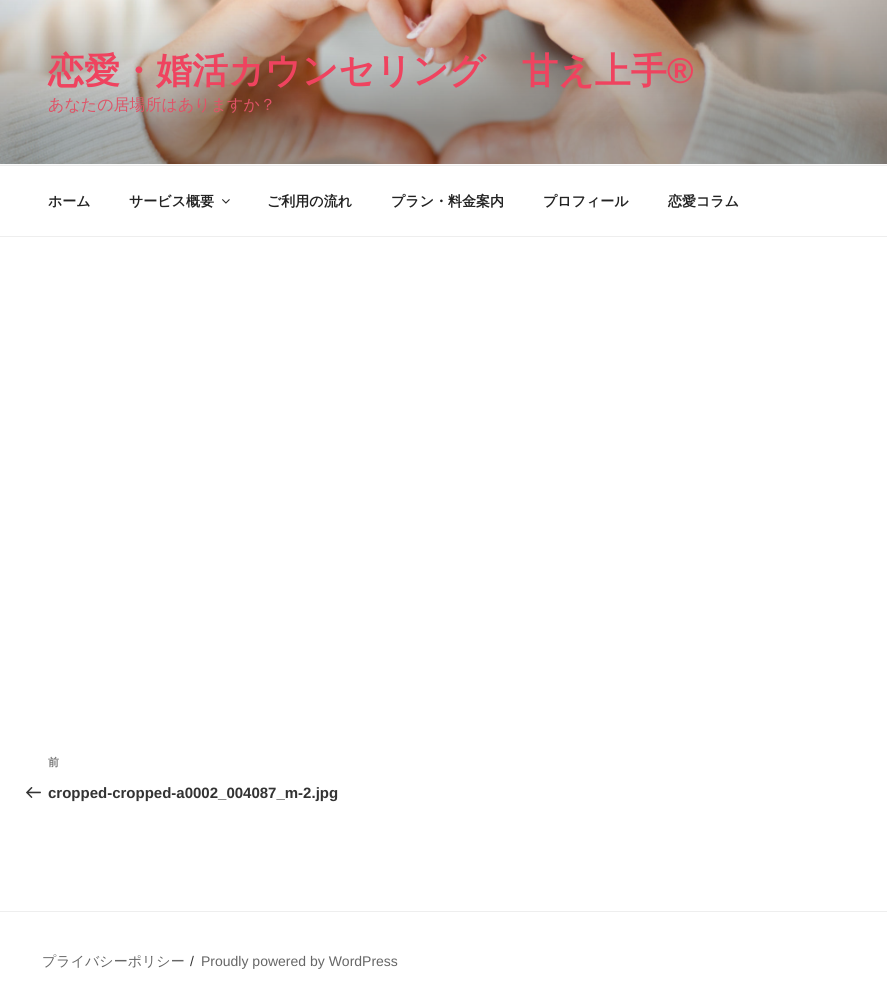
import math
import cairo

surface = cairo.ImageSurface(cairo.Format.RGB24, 887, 994)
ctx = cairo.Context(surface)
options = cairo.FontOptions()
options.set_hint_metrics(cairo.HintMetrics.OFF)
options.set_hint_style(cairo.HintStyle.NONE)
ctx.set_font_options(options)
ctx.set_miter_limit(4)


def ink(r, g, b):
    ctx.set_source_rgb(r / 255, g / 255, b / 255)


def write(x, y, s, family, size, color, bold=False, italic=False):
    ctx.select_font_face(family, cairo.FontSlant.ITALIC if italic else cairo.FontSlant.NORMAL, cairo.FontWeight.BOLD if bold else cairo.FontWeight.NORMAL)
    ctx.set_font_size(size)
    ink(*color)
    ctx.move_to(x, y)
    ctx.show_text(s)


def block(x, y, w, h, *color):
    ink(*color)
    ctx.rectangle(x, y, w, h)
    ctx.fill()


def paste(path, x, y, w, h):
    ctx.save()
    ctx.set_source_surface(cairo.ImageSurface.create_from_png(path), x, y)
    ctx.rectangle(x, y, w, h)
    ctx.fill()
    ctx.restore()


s1 = dict(family="WenQuanYi Zen Hei", size=36, color=(239, 67, 95), bold=True)
s2 = dict(family="Liberation Sans", size=36, color=(239, 67, 95), bold=True)
s3 = dict(family="WenQuanYi Zen Hei Medium", size=16, color=(223, 83, 103))
s4 = dict(family="WenQuanYi Zen Hei", size=14, color=(34, 34, 34), bold=True)
s5 = dict(family="WenQuanYi Zen Hei", size=11, color=(118, 118, 118), bold=True)
s6 = dict(family="Liberation Sans", size=15, color=(51, 51, 51), bold=True)
s7 = dict(family="WenQuanYi Zen Hei Medium", size=14, color=(102, 102, 102))
s8 = dict(family="Liberation Sans", size=14, color=(51, 51, 51))
s9 = dict(family="Liberation Sans", size=14, color=(102, 102, 102))

ink(255, 255, 255)
ctx.paint()
block(0, 164, 887, 1, 250, 250, 250)
paste("pic1.png", 0, 0, 887, 164)
write(48, 83, "恋愛・婚活カウンセリング　甘え上手", **s1)
write(667, 83, "®", **s2)
write(48, 110, "あなたの居場所はありますか？", **s3)
block(0, 165, 887, 1, 238, 238, 238)
block(0, 236, 887, 1, 238, 238, 238)
write(48, 206, "ホーム", **s4)
write(129, 206, "サービス概要", **s4)
paste("pic2.png", 222, 199, 8, 5)
write(267, 206, "ご利用の流れ", **s4)
write(391, 206, "プラン・料金案内", **s4)
write(543, 206, "プロフィール", **s4)
write(668, 206, "恋愛コラム", **s4)
write(48, 766, "前", **s5)
paste("pic3.png", 26, 787, 15, 11)
write(48, 798, "cropped-cropped-a0002_004087_m-2.jpg", **s6)
block(0, 911, 887, 1, 238, 238, 238)
write(42, 966, "プライバシーポリシー", **s7)
write(190, 966, "/", **s8)
write(201, 966, "Proudly powered by WordPress", **s9)
surface.write_to_png("screenshot.png")
